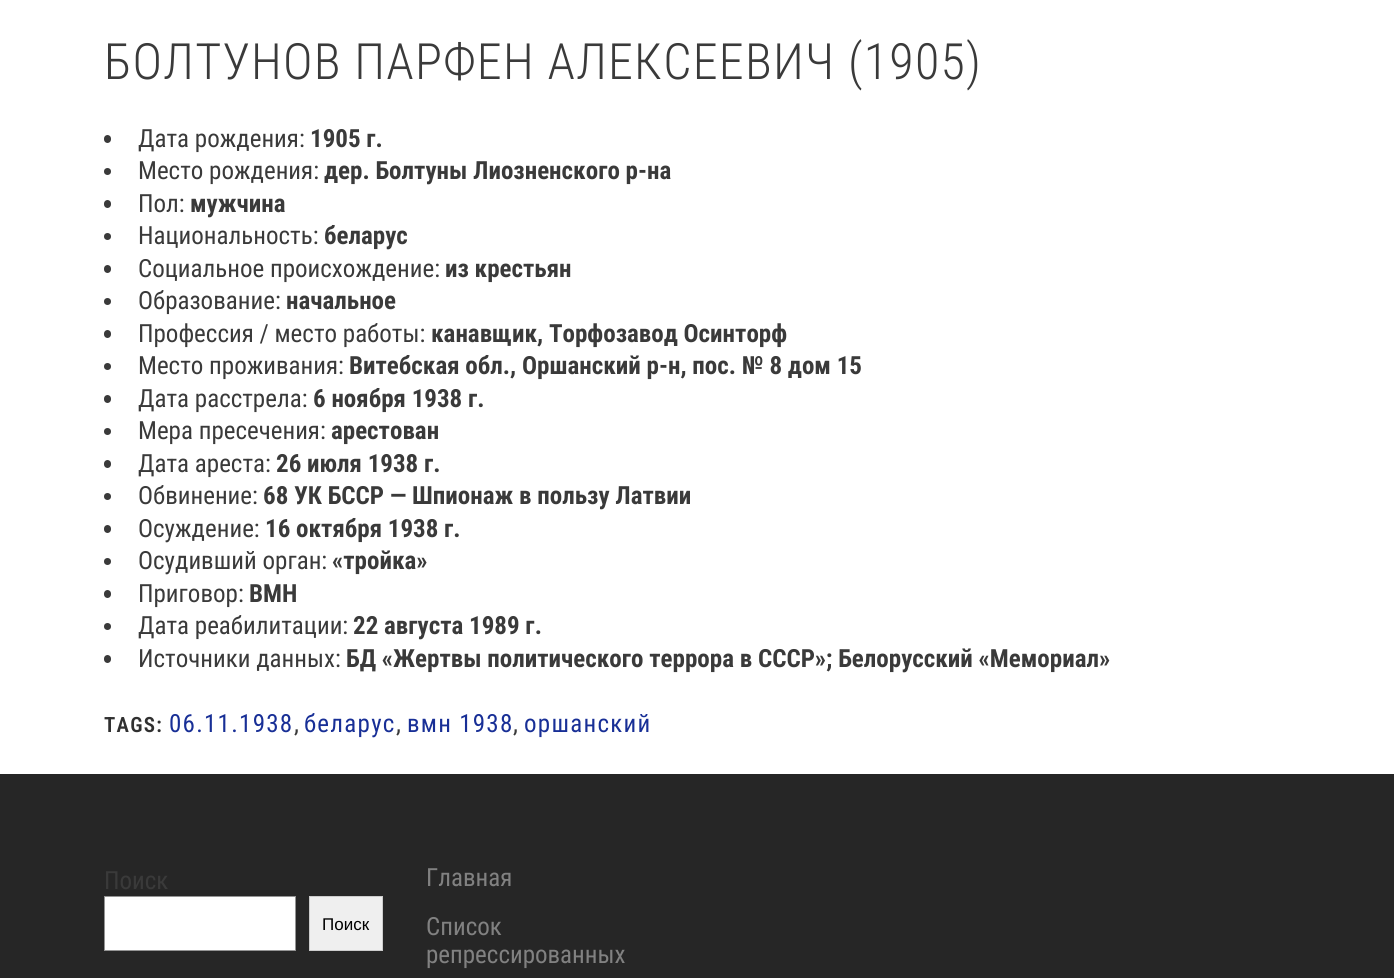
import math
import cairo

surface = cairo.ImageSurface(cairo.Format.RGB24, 1394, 978)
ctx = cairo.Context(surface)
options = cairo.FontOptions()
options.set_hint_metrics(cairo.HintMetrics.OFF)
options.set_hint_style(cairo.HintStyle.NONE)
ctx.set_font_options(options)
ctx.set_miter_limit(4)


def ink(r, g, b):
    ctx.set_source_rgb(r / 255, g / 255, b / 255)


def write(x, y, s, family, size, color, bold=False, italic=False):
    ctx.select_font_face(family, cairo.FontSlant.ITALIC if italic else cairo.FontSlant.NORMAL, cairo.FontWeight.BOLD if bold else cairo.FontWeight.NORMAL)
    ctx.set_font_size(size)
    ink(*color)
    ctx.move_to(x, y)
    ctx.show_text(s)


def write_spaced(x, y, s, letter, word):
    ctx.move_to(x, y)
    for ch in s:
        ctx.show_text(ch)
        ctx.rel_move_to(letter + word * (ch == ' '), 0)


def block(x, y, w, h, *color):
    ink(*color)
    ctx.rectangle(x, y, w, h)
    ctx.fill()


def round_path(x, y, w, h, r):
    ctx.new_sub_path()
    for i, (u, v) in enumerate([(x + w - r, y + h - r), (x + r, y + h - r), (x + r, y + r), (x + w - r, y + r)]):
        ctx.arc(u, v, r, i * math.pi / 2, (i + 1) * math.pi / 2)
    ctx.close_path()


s1 = dict(family="Roboto Condensed", size=25, color=(58, 58, 58))
s2 = dict(family="Roboto Condensed", size=25, color=(58, 58, 58), bold=True)
s3 = dict(family="Liberation Sans", size=17, color=(0, 0, 0))
s4 = dict(family="Roboto Condensed", size=25, color=(129, 129, 129))

ink(255, 255, 255)
ctx.paint()
ctx.select_font_face("Roboto Condensed Light")
ctx.set_font_size(50)
ink(58, 58, 58)
write_spaced(104, 79, "БОЛТУНОВ ПАРФЕН АЛЕКСЕЕВИЧ (1905)", 1.25, 0)
round_path(104, 135, 7, 8, 3.5)
ctx.fill()
write(138, 147, "Дата рождения:", **s1)
write(310, 147, "1905 г.", **s2)
ctx.new_path()
ctx.arc(107.5, 171.5, 3.5, 0, 2 * math.pi)
ctx.fill()
write(138, 179, "Место рождения:", **s1)
write(324, 179, "дер. Болтуны Лиозненского р-на", **s2)
round_path(104, 200, 7, 8, 3.5)
ctx.fill()
write(138, 212, "Пол:", **s1)
write(190, 212, "мужчина", **s2)
ctx.new_path()
ctx.arc(107.5, 236.5, 3.5, 0, 2 * math.pi)
ctx.fill()
write(138, 244, "Национальность:", **s1)
write(324, 244, "беларус", **s2)
round_path(104, 265, 7, 8, 3.5)
ctx.fill()
write(138, 277, "Социальное происхождение:", **s1)
write(445, 277, "из крестьян", **s2)
ctx.new_path()
ctx.arc(107.5, 301.5, 3.5, 0, 2 * math.pi)
ctx.fill()
write(138, 309, "Образование:", **s1)
write(286, 309, "начальное", **s2)
round_path(104, 330, 7, 8, 3.5)
ctx.fill()
write(138, 342, "Профессия / место работы:", **s1)
write(431, 342, "канавщик, Торфозавод Осинторф", **s2)
ctx.new_path()
ctx.arc(107.5, 366.5, 3.5, 0, 2 * math.pi)
ctx.fill()
write(138, 374, "Место проживания:", **s1)
write(349, 374, "Витебская обл., Оршанский р-н, пос. № 8 дом 15", **s2)
round_path(104, 395, 7, 8, 3.5)
ctx.fill()
write(138, 407, "Дата расстрела:", **s1)
write(313, 407, "6 ноября 1938 г.", **s2)
ctx.new_path()
ctx.arc(107.5, 431.5, 3.5, 0, 2 * math.pi)
ctx.fill()
write(138, 439, "Мера пресечения:", **s1)
write(331, 439, "арестован", **s2)
round_path(104, 460, 7, 8, 3.5)
ctx.fill()
write(138, 472, "Дата ареста:", **s1)
write(276, 472, "26 июля 1938 г.", **s2)
ctx.new_path()
ctx.arc(107.5, 496.5, 3.5, 0, 2 * math.pi)
ctx.fill()
write(138, 504, "Обвинение:", **s1)
write(263, 504, "68 УК БССР — Шпионаж в пользу Латвии", **s2)
round_path(104, 525, 7, 8, 3.5)
ctx.fill()
write(138, 537, "Осуждение:", **s1)
write(265, 537, "16 октября 1938 г.", **s2)
ctx.new_path()
ctx.arc(107.5, 561.5, 3.5, 0, 2 * math.pi)
ctx.fill()
write(138, 569, "Осудивший орган:", **s1)
write(332, 569, "«тройка»", **s2)
round_path(104, 590, 7, 8, 3.5)
ctx.fill()
write(138, 602, "Приговор:", **s1)
write(249, 602, "ВМН", **s2)
ctx.new_path()
ctx.arc(107.5, 626.5, 3.5, 0, 2 * math.pi)
ctx.fill()
write(138, 634, "Дата реабилитации:", **s1)
write(353, 634, "22 августа 1989 г.", **s2)
round_path(104, 655, 7, 8, 3.5)
ctx.fill()
write(138, 667, "Источники данных:", **s1)
write(346, 667, "БД «Жертвы политического террора в СССР»; Белорусский «Мемориал»", **s2)
ctx.select_font_face("Roboto Condensed SemiBold")
ctx.set_font_size(21)
ink(48, 48, 48)
write_spaced(104, 732, "TAGS:", 1.25, 0)
ctx.select_font_face("Roboto Condensed")
ctx.set_font_size(25)
ink(24, 47, 150)
write_spaced(169, 732, "06.11.1938", 1.25, 0)
write(294, 732, ",", **s1)
ink(24, 47, 150)
write_spaced(304, 732, "беларус", 1.25, 0)
write(396, 732, ",", **s1)
ink(24, 47, 150)
write_spaced(407, 732, "вмн 1938", 1.25, 0)
write(513, 732, ",", **s1)
ink(24, 47, 150)
write_spaced(524, 732, "оршанский", 1.25, 0)
block(0, 774, 1394, 204, 38, 38, 38)
write(104, 889, "Поиск", **s1)
ink(255, 255, 255)
ctx.rectangle(104.5, 896.5, 191, 54)
ctx.fill_preserve()
ink(148, 148, 148)
ctx.set_line_width(1)
ctx.stroke()
ink(239, 239, 239)
ctx.rectangle(309.5, 896.5, 73, 54)
ctx.fill_preserve()
ink(204, 204, 204)
ctx.stroke()
write(322, 930, "Поиск", **s3)
write(426, 886, "Главная", **s4)
write(426, 935, "Список", **s4)
write(426, 963, "репрессированных", **s4)
surface.write_to_png("screenshot.png")
